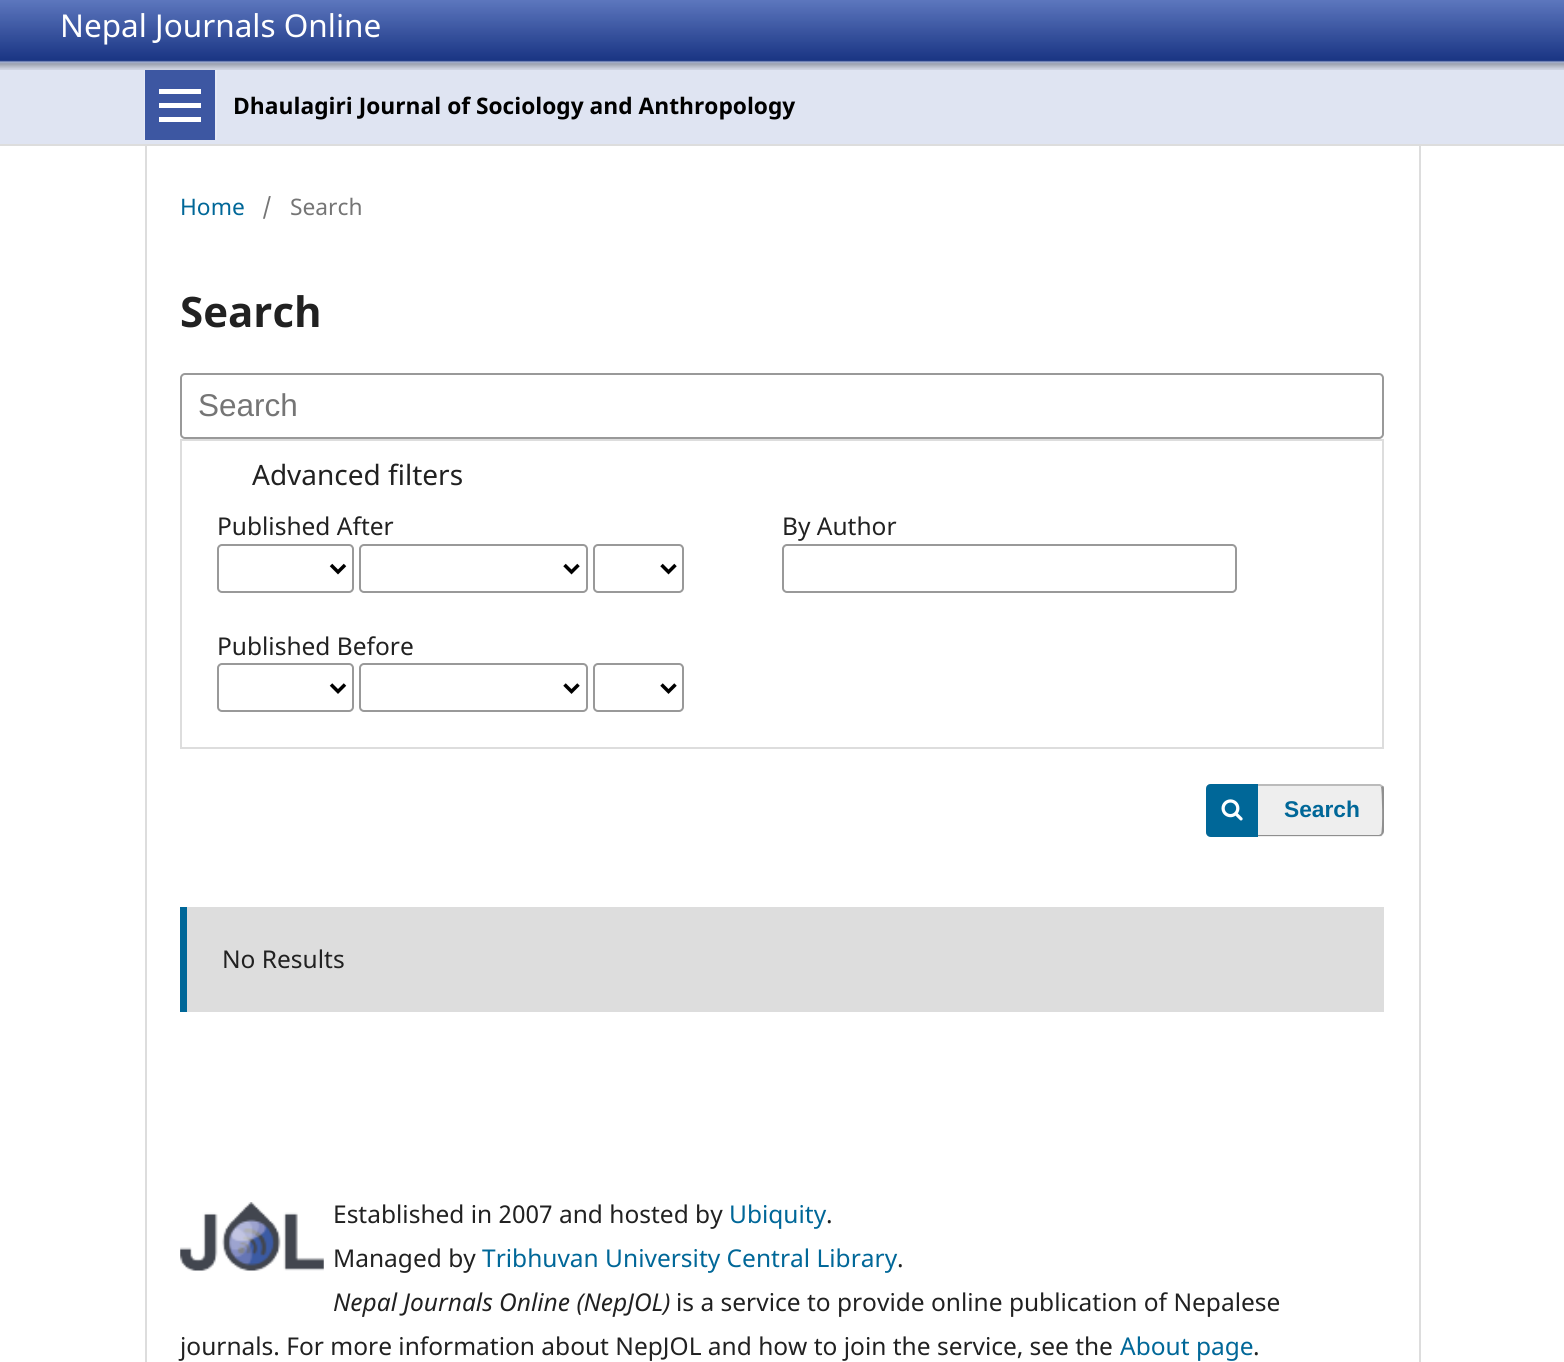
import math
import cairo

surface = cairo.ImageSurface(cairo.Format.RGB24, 1564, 1362)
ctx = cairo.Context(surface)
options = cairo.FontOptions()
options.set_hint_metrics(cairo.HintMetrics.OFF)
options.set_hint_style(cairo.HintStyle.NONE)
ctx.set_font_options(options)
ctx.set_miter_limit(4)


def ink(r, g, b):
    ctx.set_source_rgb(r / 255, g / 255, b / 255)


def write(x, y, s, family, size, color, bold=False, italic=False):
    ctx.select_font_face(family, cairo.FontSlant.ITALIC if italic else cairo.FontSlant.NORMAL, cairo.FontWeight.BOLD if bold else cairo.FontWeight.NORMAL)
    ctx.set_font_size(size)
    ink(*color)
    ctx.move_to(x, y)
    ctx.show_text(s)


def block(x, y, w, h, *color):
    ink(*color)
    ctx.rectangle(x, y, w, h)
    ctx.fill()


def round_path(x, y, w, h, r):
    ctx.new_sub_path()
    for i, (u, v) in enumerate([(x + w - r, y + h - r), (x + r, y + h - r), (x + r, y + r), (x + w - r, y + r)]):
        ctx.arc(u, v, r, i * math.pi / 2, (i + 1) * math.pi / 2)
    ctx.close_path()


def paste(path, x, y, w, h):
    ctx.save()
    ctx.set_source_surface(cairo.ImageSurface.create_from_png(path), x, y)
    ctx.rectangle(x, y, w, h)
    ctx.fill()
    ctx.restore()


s1 = dict(family="Noto Sans", size=31.5, color=(255, 255, 255))
s2 = dict(family="Noto Sans", size=22.75, color=(0, 0, 0), bold=True)
s3 = dict(family="Noto Sans", size=22.75, color=(0, 103, 152))
s4 = dict(family="Noto Sans", size=22.75, color=(117, 117, 117))
s5 = dict(family="Noto Sans", size=42, color=(33, 33, 33), bold=True)
s6 = dict(family="Liberation Sans", size=31.5, color=(117, 117, 117))
s7 = dict(family="Noto Sans", size=28, color=(33, 33, 33))
s8 = dict(family="Noto Sans", size=24.5, color=(33, 33, 33))
s9 = dict(family="Liberation Sans", size=22.75, color=(0, 103, 152), bold=True)
s10 = dict(family="Noto Sans", size=24.5, color=(0, 103, 152))
s11 = dict(family="Noto Sans", size=24.5, color=(33, 33, 33), italic=True)

ink(255, 255, 255)
ctx.paint()
block(0, 70, 1564, 74, 223, 228, 242)
block(0, 144, 1564, 2, 221, 221, 221)
paste("pic1.png", 0, 0, 1564, 70)
write(60, 37, "Nepal Journals Online", **s1)
block(144, 70, 1, 70, 229, 233, 245)
block(215, 70, 2, 70, 229, 233, 245)
block(145, 70, 70, 70, 61, 87, 162)
block(159, 117, 42, 5, 255, 255, 255)
block(159, 89, 42, 5, 255, 255, 255)
block(159, 103, 42, 5, 255, 255, 255)
write(233, 114, "Dhaulagiri Journal of Sociology and Anthropology", **s2)
block(145, 145, 2, 1217, 221, 221, 221)
write(180, 215, "Home", **s3)
write(262, 215, "/", **s4)
write(290, 215, "Search", **s4)
write(180, 327, "Search", **s5)
round_path(181, 374, 1202, 64, 4)
ink(153, 153, 153)
ctx.stroke()
write(198, 416, "Search", **s6)
ctx.rectangle(181, 440, 1202, 308)
ink(221, 221, 221)
ctx.stroke()
write(252, 485, "Advanced filters", **s7)
write(217, 535, "Published After", **s8)
round_path(218, 545, 135, 47, 4)
ink(153, 153, 153)
ctx.stroke()
ctx.new_path()
ctx.move_to(331, 565)
ctx.line_to(338, 572)
ctx.line_to(345, 565)
ink(0, 0, 0)
ctx.set_line_width(3.5)
ctx.stroke()
round_path(360, 545, 227, 47, 4)
ink(153, 153, 153)
ctx.set_line_width(2)
ctx.stroke()
ctx.new_path()
ctx.move_to(564.5, 565)
ctx.line_to(571.5, 572)
ctx.line_to(578.5, 565)
ink(0, 0, 0)
ctx.set_line_width(3.5)
ctx.stroke()
round_path(594, 545, 89, 47, 4)
ink(153, 153, 153)
ctx.set_line_width(2)
ctx.stroke()
ctx.new_path()
ctx.move_to(661.5, 565)
ctx.line_to(668.5, 572)
ctx.line_to(675.5, 565)
ink(0, 0, 0)
ctx.set_line_width(3.5)
ctx.stroke()
write(217, 655, "Published Before", **s8)
round_path(218, 664, 135, 47, 4)
ink(153, 153, 153)
ctx.set_line_width(2)
ctx.stroke()
ctx.new_path()
ctx.move_to(331, 684.5)
ctx.line_to(338, 691.5)
ctx.line_to(345, 684.5)
ink(0, 0, 0)
ctx.set_line_width(3.5)
ctx.stroke()
round_path(360, 664, 227, 47, 4)
ink(153, 153, 153)
ctx.set_line_width(2)
ctx.stroke()
ctx.new_path()
ctx.move_to(564.5, 684.5)
ctx.line_to(571.5, 691.5)
ctx.line_to(578.5, 684.5)
ink(0, 0, 0)
ctx.set_line_width(3.5)
ctx.stroke()
round_path(594, 664, 89, 47, 4)
ink(153, 153, 153)
ctx.set_line_width(2)
ctx.stroke()
ctx.new_path()
ctx.move_to(661.5, 684.5)
ctx.line_to(668.5, 691.5)
ctx.line_to(675.5, 684.5)
ink(0, 0, 0)
ctx.set_line_width(3.5)
ctx.stroke()
write(782, 535, "By Author", **s8)
round_path(783, 545, 453, 47, 4)
ink(153, 153, 153)
ctx.set_line_width(2)
ctx.stroke()
ink(238, 238, 238)
round_path(1206, 784, 178, 53, 5)
ctx.fill()
ink(187, 187, 187)
ctx.new_path()
ctx.move_to(1211, 784)
ctx.line_to(1380, 784)
ctx.line_to(1383, 786)
ctx.line_to(1381, 787)
ctx.line_to(1380, 786)
ctx.line_to(1239, 786)
ctx.curve_to(1226, 786, 1206, 783, 1206, 789)
ctx.curve_to(1206, 786, 1208, 784, 1211, 784)
ctx.close_path()
ctx.fill()
ctx.set_source_rgba(0, 0, 0, 0.4)
ctx.new_path()
ctx.move_to(1381, 834)
ctx.curve_to(1383, 831, 1382, 788, 1381, 787)
ctx.line_to(1383, 786)
ctx.curve_to(1384, 786, 1384, 788, 1384, 789)
ctx.line_to(1384, 831)
ctx.curve_to(1384, 833, 1383, 834, 1382, 835)
ctx.close_path()
ctx.fill()
ctx.new_path()
ctx.move_to(1382, 835)
ctx.line_to(1381, 834)
ctx.line_to(1379, 835)
ctx.line_to(1239, 835)
ctx.curve_to(1229, 835, 1206, 839, 1206, 831)
ctx.curve_to(1206, 834, 1208, 836, 1211, 836)
ctx.line_to(1379, 836)
ctx.curve_to(1380, 836, 1382, 836, 1382, 835)
ctx.close_path()
ctx.fill()
ink(0, 103, 152)
ctx.new_path()
ctx.move_to(1211, 784)
ctx.line_to(1258, 784)
ctx.line_to(1258, 837)
ctx.line_to(1211, 837)
ctx.curve_to(1208, 837, 1206, 835, 1206, 832)
ctx.line_to(1206, 789)
ctx.curve_to(1206, 786, 1208, 784, 1211, 784)
ctx.close_path()
ctx.fill()
paste("pic2.png", 1221, 799, 22, 22)
write(1284, 817, "Search", **s9)
block(187, 907, 1197, 105, 221, 221, 221)
block(180, 907, 7, 105, 0, 103, 152)
write(222, 968, "No Results", **s8)
block(1419, 145, 2, 1217, 221, 221, 221)
paste("pic3.png", 180, 1202, 144, 69)
write(333, 1223, "Established in 2007 and hosted by", **s8)
write(729, 1223, "Ubiquity", **s10)
write(826, 1223, ".", **s8)
write(333, 1267, "Managed by", **s8)
write(482, 1267, "Tribhuvan University Central Library", **s10)
write(897, 1267, ".", **s8)
write(333, 1311, "Nepal Journals Online (NepJOL)", **s11)
write(676, 1311, "is a service to provide online publication of Nepalese", **s8)
write(180, 1355, "journals. For more information about NepJOL and how to join the service, see the", **s8)
write(1120, 1355, "About page", **s10)
write(1253, 1355, ".", **s8)
surface.write_to_png("screenshot.png")
